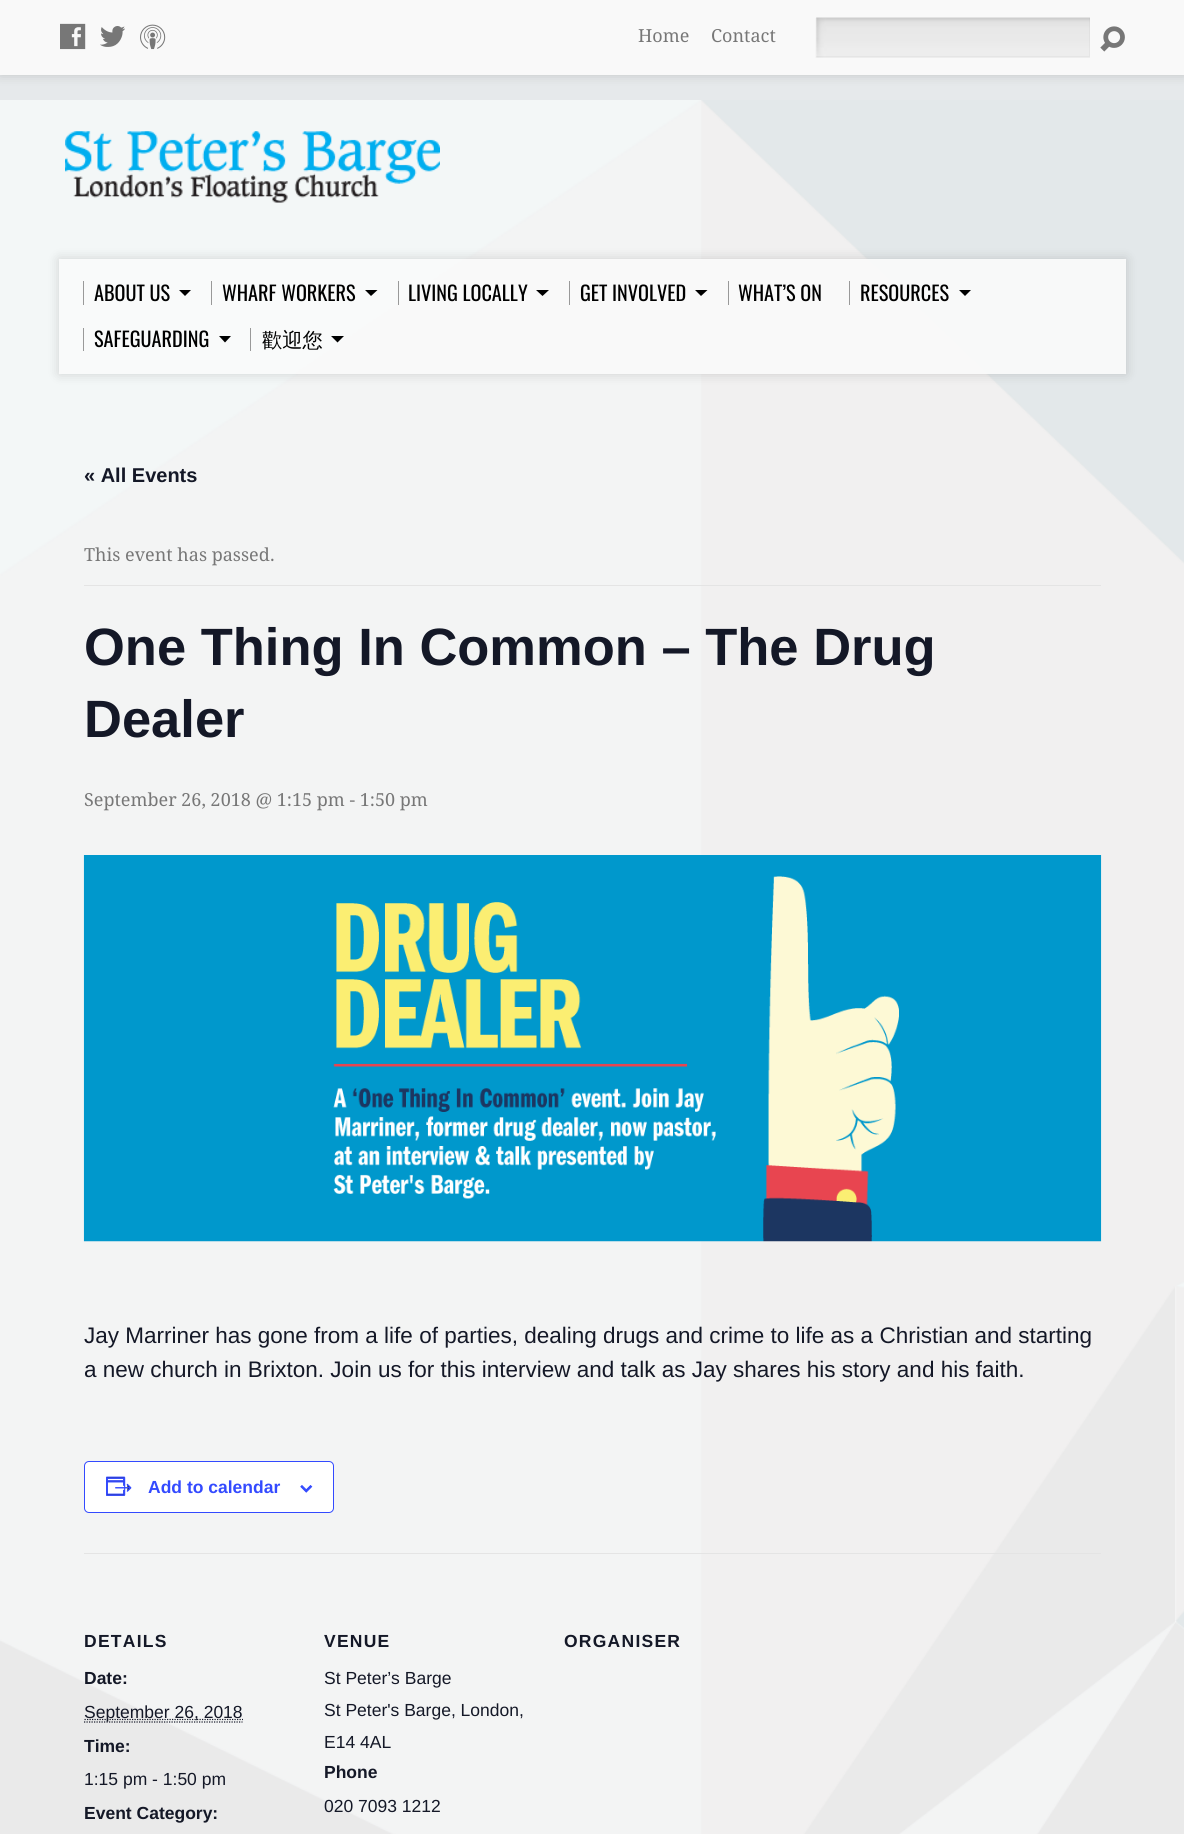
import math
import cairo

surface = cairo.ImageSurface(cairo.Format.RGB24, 1184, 1834)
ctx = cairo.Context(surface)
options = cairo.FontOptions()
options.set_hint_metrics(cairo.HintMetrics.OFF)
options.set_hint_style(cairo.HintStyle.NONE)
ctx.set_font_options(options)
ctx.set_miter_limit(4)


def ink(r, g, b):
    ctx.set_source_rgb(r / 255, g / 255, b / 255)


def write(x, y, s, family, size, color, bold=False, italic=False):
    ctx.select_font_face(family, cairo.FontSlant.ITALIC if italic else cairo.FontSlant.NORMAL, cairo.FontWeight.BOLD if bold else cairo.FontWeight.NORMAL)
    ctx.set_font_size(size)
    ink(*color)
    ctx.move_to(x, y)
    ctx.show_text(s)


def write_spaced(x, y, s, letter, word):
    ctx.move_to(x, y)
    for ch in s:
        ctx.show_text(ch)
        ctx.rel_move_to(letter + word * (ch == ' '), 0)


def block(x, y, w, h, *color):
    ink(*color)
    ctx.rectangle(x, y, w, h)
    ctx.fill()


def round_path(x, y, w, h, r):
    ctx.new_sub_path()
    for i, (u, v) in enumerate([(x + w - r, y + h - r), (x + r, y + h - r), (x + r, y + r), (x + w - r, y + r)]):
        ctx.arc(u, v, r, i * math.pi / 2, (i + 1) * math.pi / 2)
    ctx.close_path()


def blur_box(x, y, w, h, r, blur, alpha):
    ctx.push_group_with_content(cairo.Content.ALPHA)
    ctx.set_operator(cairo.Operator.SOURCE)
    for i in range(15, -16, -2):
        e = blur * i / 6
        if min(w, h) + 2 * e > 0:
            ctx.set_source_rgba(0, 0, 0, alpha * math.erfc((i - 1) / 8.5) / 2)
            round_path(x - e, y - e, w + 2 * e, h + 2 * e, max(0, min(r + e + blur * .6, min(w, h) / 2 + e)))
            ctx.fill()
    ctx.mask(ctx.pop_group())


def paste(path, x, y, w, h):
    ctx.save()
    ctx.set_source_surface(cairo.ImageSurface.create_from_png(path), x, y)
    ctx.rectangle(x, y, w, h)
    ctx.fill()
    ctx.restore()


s1 = dict(family="Droid Serif", size=18, color=(119, 119, 119))
s2 = dict(family="Oswald", size=20.25, color=(0, 0, 0))
s3 = dict(family="WenQuanYi Zen Hei Medium", size=20.25, color=(0, 0, 0))
s4 = dict(family="Liberation Sans", size=20, color=(20, 24, 39), bold=True)
s5 = dict(family="Liberation Sans", size=52.5, color=(20, 24, 39), bold=True)
s6 = dict(family="Liberation Sans", size=22.5, color=(20, 24, 39))
s7 = dict(family="Liberation Sans", size=17.5, color=(51, 74, 255), bold=True)
s8 = dict(family="Liberation Sans", size=17.5, color=(20, 24, 39), bold=True)
s9 = dict(family="Liberation Sans", size=17.5, color=(20, 24, 39))

ink(230, 233, 235)
ctx.paint()
paste("pic1.png", 0, 100, 1184, 1734)
ink(0, 0, 0)
blur_box(0, 0, 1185, 75, 0, 6, 0.15)
block(0, 0, 1184, 75, 249, 249, 249)
paste("pic2.png", 60, 23, 26, 27)
paste("pic3.png", 100, 26, 25, 21)
paste("pic4.png", 140, 24, 26, 26)
write(638, 42, "Home", **s1)
write(711, 42, "Contact", **s1)
block(815, 18, 275, 40, 255, 255, 255)
paste("pic5.png", 816, 17, 274, 41)
ctx.set_source_rgba(0.588, 0.588, 0.588, 0.1)
ctx.new_path()
ctx.move_to(1090, 18)
ctx.line_to(1090, 58)
ctx.line_to(1089, 56)
ctx.line_to(1089, 18)
ctx.close_path()
ctx.fill()
ctx.new_path()
ctx.move_to(1090, 58)
ctx.line_to(815, 58)
ctx.line_to(816, 56)
ctx.line_to(1089, 56)
ctx.close_path()
ctx.fill()
ctx.new_path()
ctx.move_to(815, 58)
ctx.line_to(815, 18)
ctx.line_to(816, 18)
ctx.line_to(816, 56)
ctx.close_path()
ctx.fill()
paste("pic6.png", 1100, 26, 25, 26)
paste("pic7.png", 65, 131, 375, 72)
ctx.save()
ctx.set_fill_rule(cairo.FillRule.EVEN_ODD)
ctx.new_path()
ctx.move_to(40, 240)
ctx.line_to(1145, 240)
ctx.line_to(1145, 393)
ctx.line_to(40, 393)
ctx.close_path()
ctx.move_to(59, 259)
ctx.line_to(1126, 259)
ctx.line_to(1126, 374)
ctx.line_to(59, 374)
ctx.close_path()
ctx.clip()
ink(0, 0, 0)
blur_box(59, 259, 1067, 115, 0, 6, 0.15)
ctx.restore()
ctx.set_source_rgba(0.98, 0.98, 0.98, 0.94)
ctx.rectangle(59, 259, 1067, 115)
ctx.fill()
block(83, 281, 1, 24, 153, 153, 153)
write(94, 301, "ABOUT US", **s2)
ctx.new_path()
ctx.move_to(179, 290)
ctx.line_to(191, 290)
ctx.line_to(185, 296)
ctx.close_path()
ctx.fill()
block(211, 281, 1, 24, 153, 153, 153)
write(222, 301, "WHARF WORKERS", **s2)
ctx.new_path()
ctx.move_to(365, 290)
ctx.line_to(377.5, 290)
ctx.line_to(371, 296)
ctx.close_path()
ctx.fill()
block(398, 281, 1, 24, 153, 153, 153)
write(408, 301, "LIVING LOCALLY", **s2)
ctx.new_path()
ctx.move_to(536, 290)
ctx.line_to(549, 290)
ctx.line_to(542.5, 296)
ctx.close_path()
ctx.fill()
block(569, 281, 1, 24, 153, 153, 153)
write(580, 301, "GET INVOLVED", **s2)
ctx.new_path()
ctx.move_to(695, 290)
ctx.line_to(707.5, 290)
ctx.line_to(701, 296)
ctx.close_path()
ctx.fill()
block(728, 281, 1, 24, 153, 153, 153)
write(738, 301, "WHAT’S ON", **s2)
block(849, 281, 1, 24, 153, 153, 153)
write(860, 301, "RESOURCES", **s2)
ctx.new_path()
ctx.move_to(959, 290)
ctx.line_to(971, 290)
ctx.line_to(965, 296)
ctx.close_path()
ctx.fill()
block(83, 328, 1, 23, 153, 153, 153)
write(94, 347, "SAFEGUARDING", **s2)
ctx.new_path()
ctx.move_to(219, 336)
ctx.line_to(231, 336)
ctx.line_to(225, 342.5)
ctx.close_path()
ctx.fill()
block(250, 328, 1, 23, 153, 153, 153)
write(262, 347, "歡迎您", **s3)
ctx.new_path()
ctx.move_to(331, 336)
ctx.line_to(344, 336)
ctx.line_to(337.5, 342.5)
ctx.close_path()
ctx.fill()
write(84, 482, "« All Events", **s4)
block(84, 585, 1017, 1, 228, 228, 228)
write(84, 561, "This event has passed.", **s1)
write(84, 665, "One Thing In Common – The Drug", **s5)
write(84, 737, "Dealer", **s5)
write(84, 806, "September 26, 2018 @ 1:15 pm - 1:50 pm", **s1)
paste("pic8.png", 83, 855, 1019, 387)
write(84, 1343, "Jay Marriner has gone from a life of parties, dealing drugs and crime to life as a Christian and starting", **s6)
write(84, 1377, "a new church in Brixton. Join us for this interview and talk as Jay shares his story and his faith.", **s6)
ink(255, 255, 255)
round_path(84.5, 1461.5, 249, 51, 4.5)
ctx.fill_preserve()
ink(51, 74, 255)
ctx.set_line_width(1)
ctx.stroke()
paste("pic9.png", 106, 1476, 26, 20)
write(148, 1493, "Add to calendar", **s7)
paste("pic10.png", 300, 1485, 13, 8)
block(84, 1553, 1017, 1, 228, 228, 228)
ink(20, 24, 39)
write_spaced(84, 1647, "DETAILS", 1.25, 0)
write(84, 1684, "Date:", **s8)
ctx.new_path()
ctx.move_to(84, 1722)
ctx.line_to(242.5, 1722)
ctx.set_line_width(1.2)
ctx.set_dash([1.25, 1.25])
ctx.stroke()
ctx.new_path()
ctx.move_to(84.5, 1719.5)
ctx.line_to(243, 1719.5)
ctx.stroke()
write(84, 1718, "September 26, 2018", **s9)
write(84, 1752, "Time:", **s8)
write(84, 1785, "1:15 pm - 1:50 pm", **s9)
write(84, 1819, "Event Category:", **s8)
write_spaced(324, 1647, "VENUE", 1.25, 0)
write(324, 1684, "St Peter’s Barge", **s9)
write(324, 1716, "St Peter's Barge, London,", **s9)
write(324, 1748, "E14 4AL", **s9)
write(324, 1778, "Phone", **s8)
write(324, 1812, "020 7093 1212", **s9)
ctx.select_font_face("Liberation Sans", cairo.FontSlant.NORMAL, cairo.FontWeight.BOLD)
write_spaced(564, 1647, "ORGANISER", 1.25, 0)
surface.write_to_png("screenshot.png")
